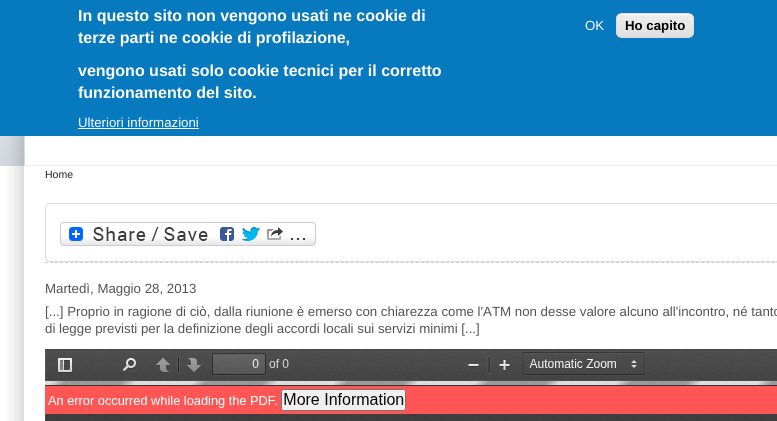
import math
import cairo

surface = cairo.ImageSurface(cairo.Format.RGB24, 777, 421)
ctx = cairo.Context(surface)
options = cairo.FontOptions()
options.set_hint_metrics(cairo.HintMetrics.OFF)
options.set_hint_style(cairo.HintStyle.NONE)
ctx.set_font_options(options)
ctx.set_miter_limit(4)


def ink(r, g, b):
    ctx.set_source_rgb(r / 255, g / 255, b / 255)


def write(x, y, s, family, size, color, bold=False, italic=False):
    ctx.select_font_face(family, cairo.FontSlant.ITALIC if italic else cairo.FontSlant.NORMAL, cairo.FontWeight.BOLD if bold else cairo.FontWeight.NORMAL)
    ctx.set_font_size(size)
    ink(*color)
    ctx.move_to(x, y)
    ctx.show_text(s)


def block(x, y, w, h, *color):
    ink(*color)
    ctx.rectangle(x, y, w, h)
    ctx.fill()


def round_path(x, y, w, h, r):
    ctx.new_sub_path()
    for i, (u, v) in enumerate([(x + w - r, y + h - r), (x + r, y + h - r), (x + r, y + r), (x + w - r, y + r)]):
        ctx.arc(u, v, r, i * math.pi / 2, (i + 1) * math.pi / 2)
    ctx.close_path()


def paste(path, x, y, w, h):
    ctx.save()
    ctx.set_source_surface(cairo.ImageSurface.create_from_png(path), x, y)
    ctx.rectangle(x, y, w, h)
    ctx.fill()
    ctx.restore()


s1 = dict(family="Liberation Sans", size=16, color=(255, 255, 255), bold=True)
s2 = dict(family="Liberation Sans", size=13.25, color=(255, 255, 255))
s3 = dict(family="Liberation Sans", size=13.25, color=(0, 0, 0), bold=True)
s4 = dict(family="Liberation Sans", size=10.5, color=(30, 32, 27))
s5 = dict(family="Liberation Sans", size=13.28, color=(83, 83, 83))

ink(255, 255, 255)
ctx.paint()
block(0, 0, 777, 136, 7, 121, 191)
write(78, 21, "In questo sito non vengono usati ne cookie di", **s1)
write(78, 43, "terze parti ne cookie di profilazione,", **s1)
write(78, 76, "vengono usati solo cookie tecnici per il corretto", **s1)
write(78, 98, "funzionamento del sito.", **s1)
write(78, 127, "Ulteriori informazioni", **s2)
block(78, 128, 121, 1, 255, 255, 255)
write(585, 30, "OK", **s2)
ctx.save()
round_path(616, 13, 78, 25, 6)
ctx.clip()
gradient = cairo.LinearGradient(655, 14, 655, 37)
gradient.add_color_stop_rgba(0.05, 0.929, 0.929, 0.929, 1)
gradient.add_color_stop_rgba(1, 0.875, 0.875, 0.875, 1)
ctx.set_source(gradient)
ctx.rectangle(616, 14, 78, 23)
ctx.fill()
ctx.restore()
ctx.new_path()
ctx.move_to(622, 15)
ctx.line_to(688, 15)
ctx.curve_to(691, 15, 693, 17, 693, 20)
ctx.curve_to(693, 11, 683, 14, 677, 14)
ctx.line_to(633, 14)
ctx.curve_to(627, 14, 617, 11, 617, 20)
ctx.curve_to(617, 17, 619, 15, 622, 15)
ctx.close_path()
ctx.fill()
round_path(616.5, 13.5, 77, 24, 5.5)
ink(220, 220, 220)
ctx.set_line_width(1)
ctx.stroke()
write(625, 30, "Ho capito", **s3)
paste("pic1.png", 24, 136, 1, 30)
paste("pic2.png", 0, 136, 24, 30)
block(25, 165, 752, 1, 238, 238, 238)
paste("pic3.png", 7, 166, 17, 255)
write(45, 178, "Home", **s4)
round_path(45.5, 203.5, 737, 58, 4.5)
ink(221, 221, 221)
ctx.stroke()
paste("pic4.png", 60, 222, 256, 24)
ctx.new_path()
ctx.move_to(45, 262.5)
ctx.line_to(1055, 262.5)
ink(204, 204, 204)
ctx.set_dash([3, 2.01])
ctx.stroke()
write(45, 293, "Martedì, Maggio 28, 2013", **s5)
write(45, 316, "[...] Proprio in ragione di ciò, dalla riunione è emerso con chiarezza come l'ATM non desse valore alcuno all'incontro, né tanto", **s5)
write(45, 333, "di legge previsti per la definizione degli accordi locali sui servizi minimi [...]", **s5)
paste("pic5.png", 45, 349, 732, 72)
surface.write_to_png("screenshot.png")
